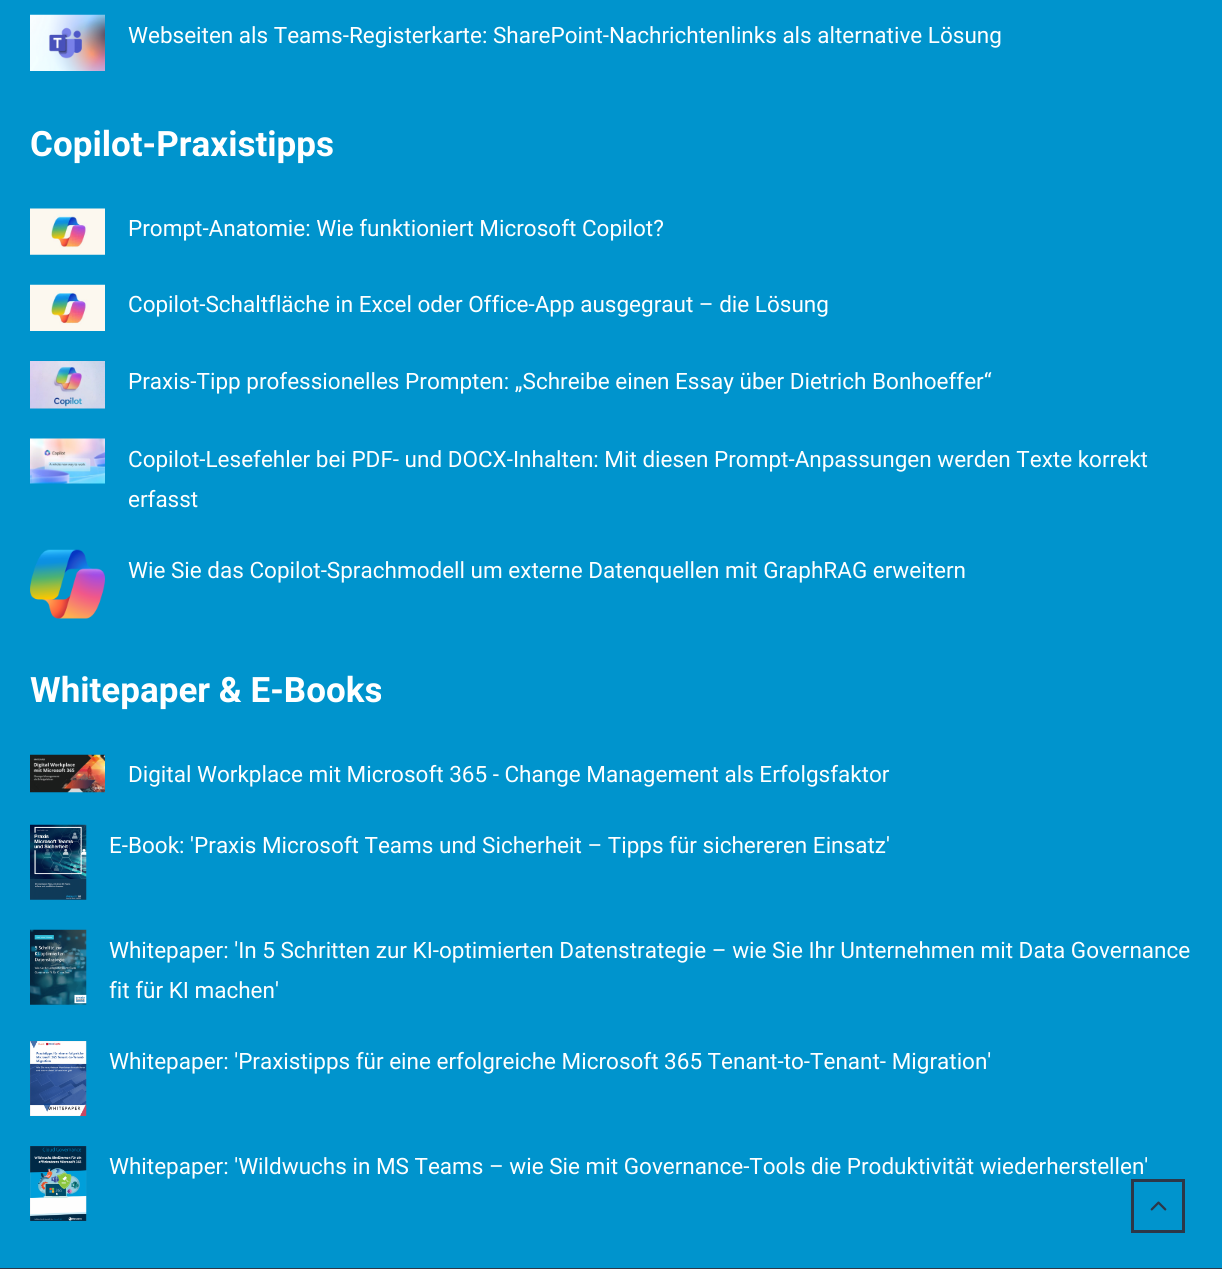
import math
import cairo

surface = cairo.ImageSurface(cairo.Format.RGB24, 1222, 1269)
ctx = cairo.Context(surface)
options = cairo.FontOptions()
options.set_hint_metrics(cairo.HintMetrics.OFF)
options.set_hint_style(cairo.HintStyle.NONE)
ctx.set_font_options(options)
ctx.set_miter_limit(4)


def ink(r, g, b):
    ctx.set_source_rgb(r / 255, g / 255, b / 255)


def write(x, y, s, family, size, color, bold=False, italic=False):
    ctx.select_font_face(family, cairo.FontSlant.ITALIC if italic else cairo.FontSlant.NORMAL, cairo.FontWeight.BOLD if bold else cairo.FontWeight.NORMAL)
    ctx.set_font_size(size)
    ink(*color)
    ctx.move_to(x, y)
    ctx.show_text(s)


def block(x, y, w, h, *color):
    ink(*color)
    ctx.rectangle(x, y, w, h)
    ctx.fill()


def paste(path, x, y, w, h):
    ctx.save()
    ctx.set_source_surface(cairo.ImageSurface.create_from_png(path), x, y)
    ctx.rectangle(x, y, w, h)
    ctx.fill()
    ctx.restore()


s1 = dict(family="Roboto", size=22.5, color=(255, 255, 255))
s2 = dict(family="Roboto", size=35, color=(255, 255, 255), bold=True)

ink(0, 148, 205)
ctx.paint()
paste("pic1.png", 30, 14, 75, 57)
write(128, 43, "Webseiten als Teams-Registerkarte: SharePoint-Nachrichtenlinks als alternative Lösung", **s1)
write(30, 156, "Copilot-Praxistipps", **s2)
paste("pic2.png", 30, 208, 75, 47)
write(128, 236, "Prompt-Anatomie: Wie funktioniert Microsoft Copilot?", **s1)
paste("pic3.png", 30, 284, 75, 47)
write(128, 312, "Copilot-Schaltfläche in Excel oder Office-App ausgegraut – die Lösung", **s1)
paste("pic4.png", 30, 361, 75, 48)
write(128, 389, "Praxis-Tipp professionelles Prompten: „Schreibe einen Essay über Dietrich Bonhoeffer“", **s1)
paste("pic5.png", 30, 438, 75, 46)
write(128, 467, "Copilot-Lesefehler bei PDF- und DOCX-Inhalten: Mit diesen Prompt-Anpassungen werden Texte korrekt", **s1)
write(128, 507, "erfasst", **s1)
paste("pic6.png", 30, 549, 75, 70)
write(128, 578, "Wie Sie das Copilot-Sprachmodell um externe Datenquellen mit GraphRAG erweitern", **s1)
write(30, 702, "Whitepaper & E-Books", **s2)
paste("pic7.png", 30, 754, 75, 39)
write(128, 782, "Digital Workplace mit Microsoft 365 - Change Management als Erfolgsfaktor", **s1)
paste("pic8.png", 30, 824, 57, 76)
write(109, 853, "E-Book: 'Praxis Microsoft Teams und Sicherheit – Tipps für sichereren Einsatz'", **s1)
paste("pic9.png", 30, 929, 57, 76)
write(109, 958, "Whitepaper: 'In 5 Schritten zur KI-optimierten Datenstrategie – wie Sie Ihr Unternehmen mit Data Governance", **s1)
write(109, 998, "fit für KI machen'", **s1)
paste("pic10.png", 30, 1041, 57, 75)
write(109, 1069, "Whitepaper: 'Praxistipps für eine erfolgreiche Microsoft 365 Tenant-to-Tenant- Migration'", **s1)
paste("pic11.png", 30, 1146, 57, 75)
write(109, 1174, "Whitepaper: 'Wildwuchs in MS Teams – wie Sie mit Governance-Tools die Produktivität wiederherstellen'", **s1)
block(0, 1268, 1222, 1, 45, 55, 72)
ctx.rectangle(1132.5, 1180.5, 51, 51)
ctx.set_line_width(3)
ctx.stroke()
paste("pic12.png", 1150, 1201, 17, 10)
surface.write_to_png("screenshot.png")
